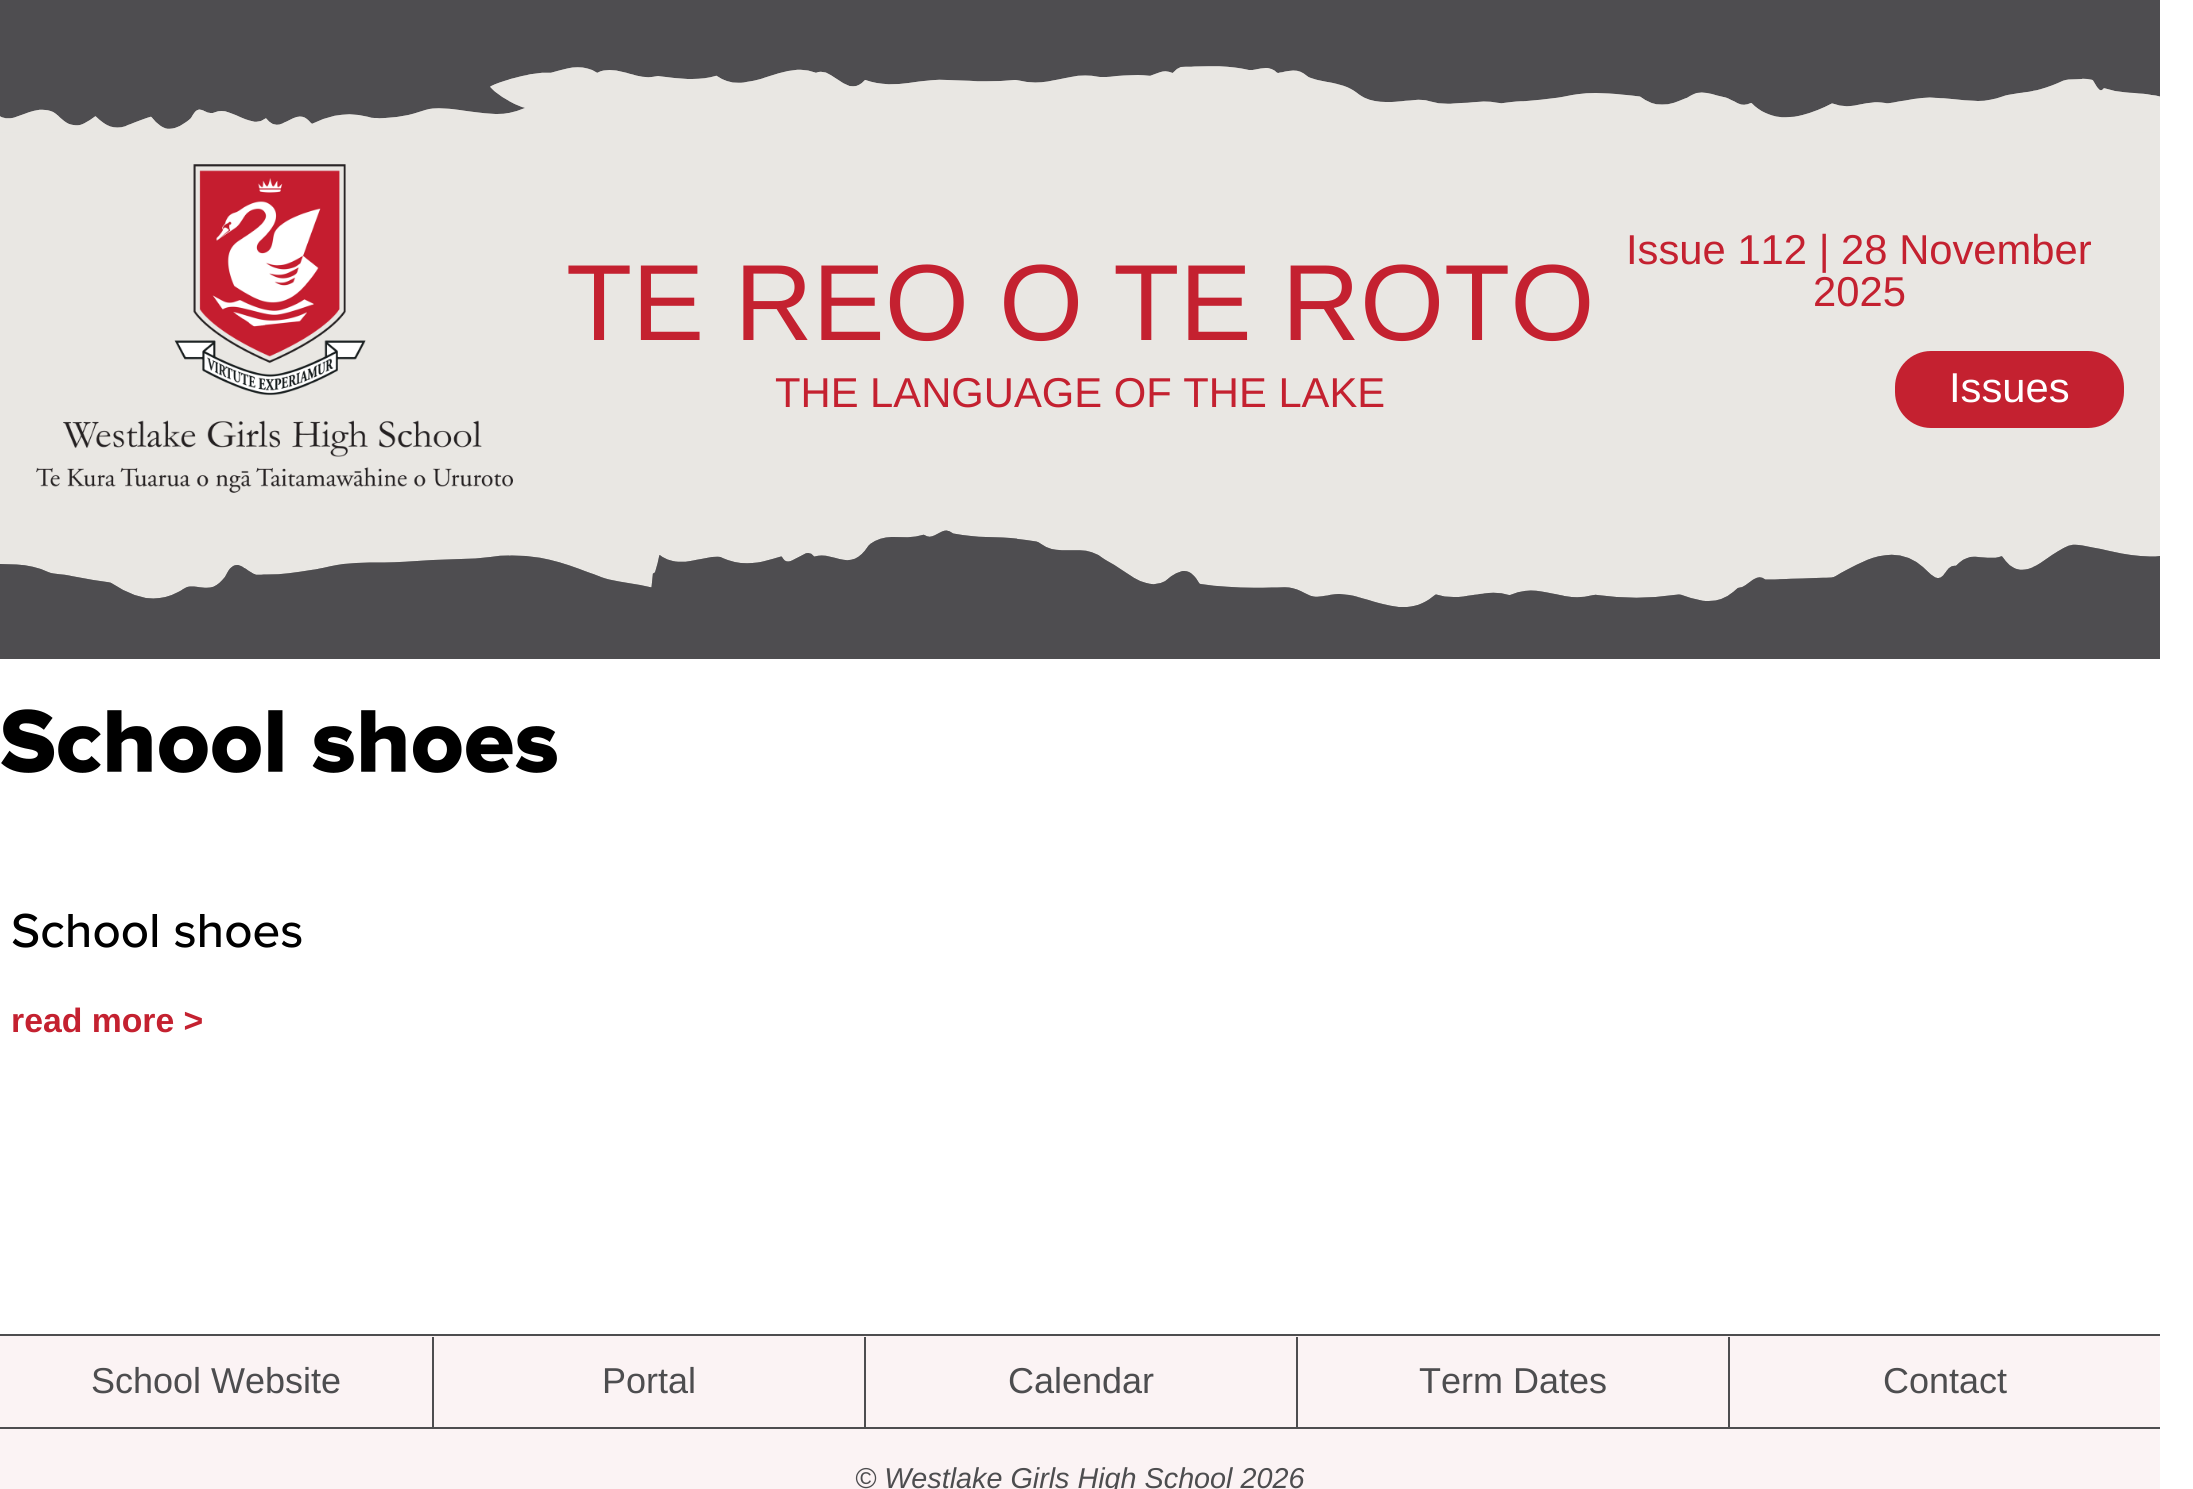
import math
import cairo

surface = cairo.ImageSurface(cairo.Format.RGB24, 2193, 1489)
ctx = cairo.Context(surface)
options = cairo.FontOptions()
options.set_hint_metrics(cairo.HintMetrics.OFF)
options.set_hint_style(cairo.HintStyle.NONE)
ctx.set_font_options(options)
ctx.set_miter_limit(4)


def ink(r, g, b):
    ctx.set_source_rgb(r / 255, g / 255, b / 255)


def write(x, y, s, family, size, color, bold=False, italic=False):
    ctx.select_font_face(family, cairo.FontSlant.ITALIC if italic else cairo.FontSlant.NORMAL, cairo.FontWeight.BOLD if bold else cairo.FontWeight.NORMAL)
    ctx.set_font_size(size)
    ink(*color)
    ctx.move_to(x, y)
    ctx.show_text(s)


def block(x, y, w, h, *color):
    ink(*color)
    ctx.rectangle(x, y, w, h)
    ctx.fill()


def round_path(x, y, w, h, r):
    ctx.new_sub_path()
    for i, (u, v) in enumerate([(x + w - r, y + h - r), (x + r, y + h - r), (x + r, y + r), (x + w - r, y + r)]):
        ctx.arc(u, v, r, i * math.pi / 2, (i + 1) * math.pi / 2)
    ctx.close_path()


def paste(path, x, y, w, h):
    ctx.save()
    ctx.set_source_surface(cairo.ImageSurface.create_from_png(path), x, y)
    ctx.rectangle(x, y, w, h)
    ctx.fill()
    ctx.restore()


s1 = dict(family="Liberation Sans", size=108.25, color=(196, 33, 48))
s2 = dict(family="Liberation Sans", size=41.75, color=(196, 33, 48))
s3 = dict(family="Liberation Sans", size=41.75, color=(255, 255, 255))
s4 = dict(family="Proxima Nova", size=49.5, color=(0, 0, 0))
s5 = dict(family="Liberation Sans", size=33.75, color=(196, 33, 48), bold=True)
s6 = dict(family="Liberation Sans", size=36, color=(77, 77, 79))
s7 = dict(family="Liberation Sans", size=28.75, color=(77, 77, 79), italic=True)

ink(255, 255, 255)
ctx.paint()
block(0, 132, 2160, 395, 233, 231, 227)
paste("pic1.png", 0, 0, 2160, 659)
paste("pic2.png", 36, 164, 477, 329)
write(566, 340, "TE REO O TE ROTO", **s1)
write(775, 407, "THE LANGUAGE OF THE LAKE", **s2)
write(1626, 264, "Issue 112 | 28 November", **s2)
write(1813, 306, "2025", **s2)
round_path(1895, 351, 229, 77, 36)
ctx.fill()
write(1949, 402, "Issues", **s3)
paste("pic3.png", 1, 709, 556, 64)
write(11, 947, "School shoes", **s4)
write(11, 1032, "read more >", **s5)
block(0, 1336, 2160, 153, 251, 243, 244)
block(0, 1334, 2160, 2, 77, 77, 79)
block(0, 1427, 2160, 2, 77, 77, 79)
write(91, 1393, "School Website", **s6)
block(432, 1337, 2, 92, 77, 77, 79)
write(602, 1393, "Portal", **s6)
block(864, 1337, 2, 92, 77, 77, 79)
write(1008, 1393, "Calendar", **s6)
block(1296, 1337, 2, 92, 77, 77, 79)
write(1419, 1393, "Term Dates", **s6)
block(1728, 1337, 2, 92, 77, 77, 79)
write(1883, 1393, "Contact", **s6)
write(855, 1488, "© Westlake Girls High School 2026", **s7)
surface.write_to_png("screenshot.png")
